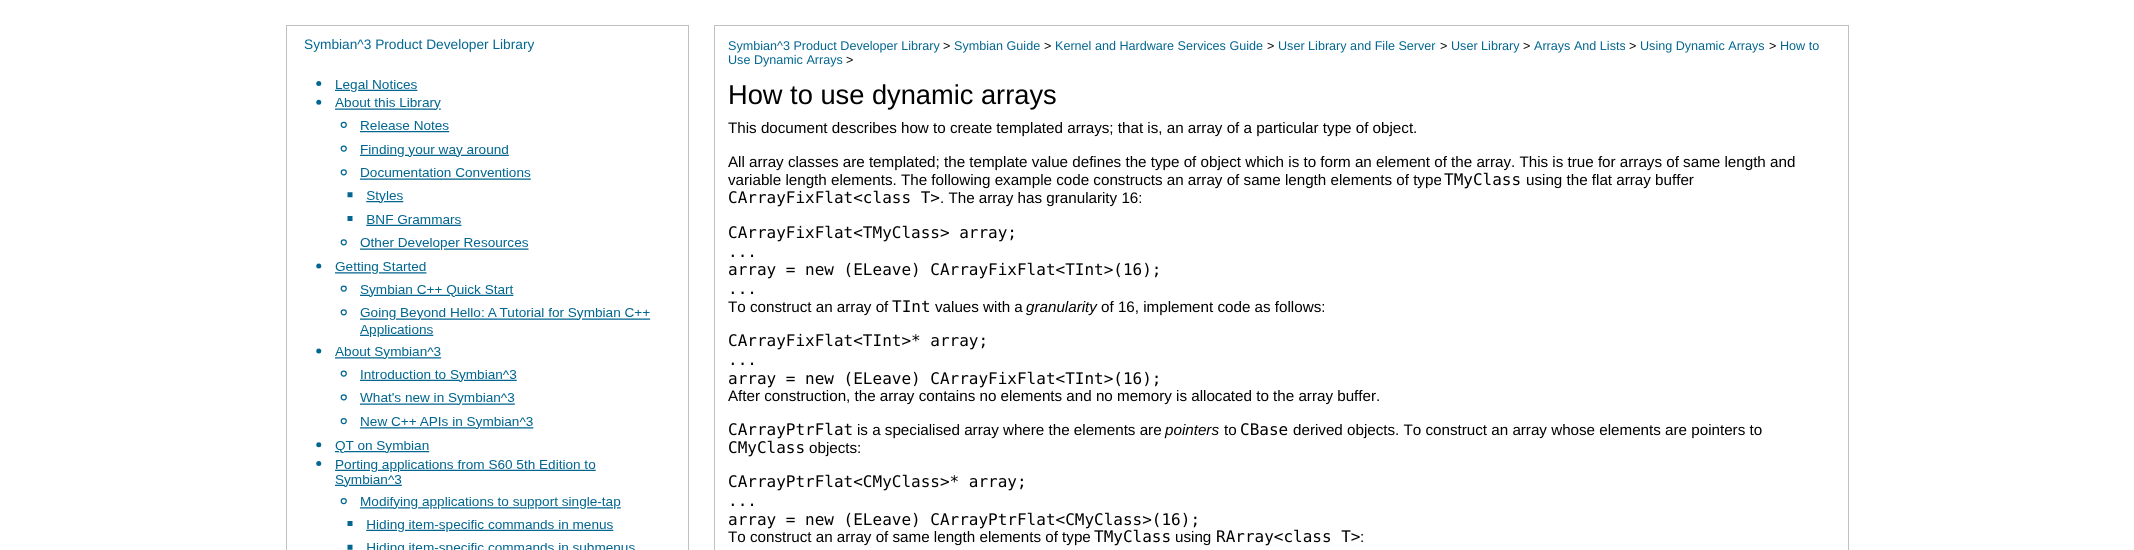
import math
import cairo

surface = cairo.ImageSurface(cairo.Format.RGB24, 2134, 550)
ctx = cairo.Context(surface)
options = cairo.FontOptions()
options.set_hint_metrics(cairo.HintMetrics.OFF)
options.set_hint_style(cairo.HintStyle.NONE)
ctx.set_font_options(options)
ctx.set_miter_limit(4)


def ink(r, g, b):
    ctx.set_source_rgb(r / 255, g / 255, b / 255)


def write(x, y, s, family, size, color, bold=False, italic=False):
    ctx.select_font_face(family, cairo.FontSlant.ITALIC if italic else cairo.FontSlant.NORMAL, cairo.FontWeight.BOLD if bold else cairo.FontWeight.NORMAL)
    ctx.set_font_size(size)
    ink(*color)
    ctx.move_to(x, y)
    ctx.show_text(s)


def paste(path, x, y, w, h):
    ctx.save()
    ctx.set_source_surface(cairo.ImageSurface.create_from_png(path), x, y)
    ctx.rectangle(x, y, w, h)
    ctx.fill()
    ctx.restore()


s1 = dict(family="Liberation Sans", size=13.7, color=(2, 102, 144))
s2 = dict(family="Liberation Sans", size=12.6, color=(2, 102, 144))
s3 = dict(family="Liberation Sans", size=12.6, color=(0, 0, 0))
s4 = dict(family="Liberation Sans", size=27.25, color=(0, 0, 0))
s5 = dict(family="Liberation Sans", size=15.18, color=(0, 0, 0))
s6 = dict(family="DejaVu Sans Mono", size=16, color=(0, 0, 0))
s7 = dict(family="Liberation Sans", size=15.18, color=(0, 0, 0), italic=True)

ink(255, 255, 255)
ctx.paint()
ctx.rectangle(286.5, 25.5, 402, 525)
ink(192, 192, 192)
ctx.set_line_width(1)
ctx.stroke()
write(304, 49, "Symbian^3 Product Developer Library", **s1)
paste("pic1.png", 316, 80, 335, 470)
ctx.rectangle(714.5, 25.5, 1134, 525)
ink(192, 192, 192)
ctx.stroke()
write(728, 50, "Symbian^3 Product Developer Library", **s2)
write(943, 50, ">", **s3)
write(954, 50, "Symbian Guide", **s2)
write(1044, 50, ">", **s3)
write(1055, 50, "Kernel and Hardware Services Guide", **s2)
write(1267, 50, ">", **s3)
write(1278, 50, "User Library and File Server", **s2)
write(1440, 50, ">", **s3)
write(1451, 50, "User Library", **s2)
write(1523, 50, ">", **s3)
write(1534, 50, "Arrays And Lists", **s2)
write(1629, 50, ">", **s3)
write(1640, 50, "Using Dynamic Arrays", **s2)
write(1769, 50, ">", **s3)
write(1780, 50, "How to", **s2)
write(728, 64, "Use Dynamic Arrays", **s2)
write(846, 64, ">", **s3)
write(728, 104, "How to use dynamic arrays", **s4)
write(728, 133, "This document describes how to create templated arrays; that is, an array of a particular type of object.", **s5)
write(728, 167, "All array classes are templated; the template value defines the type of object which is to form an element of the array. This is true for arrays of same length and", **s5)
write(728, 185, "variable length elements. The following example code constructs an array of same length elements of type", **s5)
write(1444, 185, "TMyClass", **s6)
write(1526, 185, "using the flat array buffer", **s5)
write(728, 203, "CArrayFixFlat<class T>", **s6)
write(940, 203, ". The array has granularity 16:", **s5)
write(728, 238, "CArrayFixFlat<TMyClass> array;", **s6)
write(728, 257, "...", **s6)
write(728, 275, "array = new (ELeave) CArrayFixFlat<TInt>(16);", **s6)
write(728, 294, "...", **s6)
write(728, 312, "To construct an array of", **s5)
write(892, 312, "TInt", **s6)
write(935, 312, "values with a", **s5)
write(1026, 312, "granularity", **s7)
write(1101, 312, "of 16, implement code as follows:", **s5)
write(728, 346, "CArrayFixFlat<TInt>* array;", **s6)
write(728, 365, "...", **s6)
write(728, 384, "array = new (ELeave) CArrayFixFlat<TInt>(16);", **s6)
write(728, 401, "After construction, the array contains no elements and no memory is allocated to the array buffer.", **s5)
write(728, 435, "CArrayPtrFlat", **s6)
write(857, 435, "is a specialised array where the elements are", **s5)
write(1165, 435, "pointers", **s7)
write(1224, 435, "to", **s5)
write(1240, 435, "CBase", **s6)
write(1293, 435, "derived objects. To construct an array whose elements are pointers to", **s5)
write(728, 453, "CMyClass", **s6)
write(809, 453, "objects:", **s5)
write(728, 487, "CArrayPtrFlat<CMyClass>* array;", **s6)
write(728, 506, "...", **s6)
write(728, 525, "array = new (ELeave) CArrayPtrFlat<CMyClass>(16);", **s6)
write(728, 542, "To construct an array of same length elements of type", **s5)
write(1094, 542, "TMyClass", **s6)
write(1175, 542, "using", **s5)
write(1216, 542, "RArray<class T>", **s6)
write(1360, 542, ":", **s5)
surface.write_to_png("screenshot.png")
